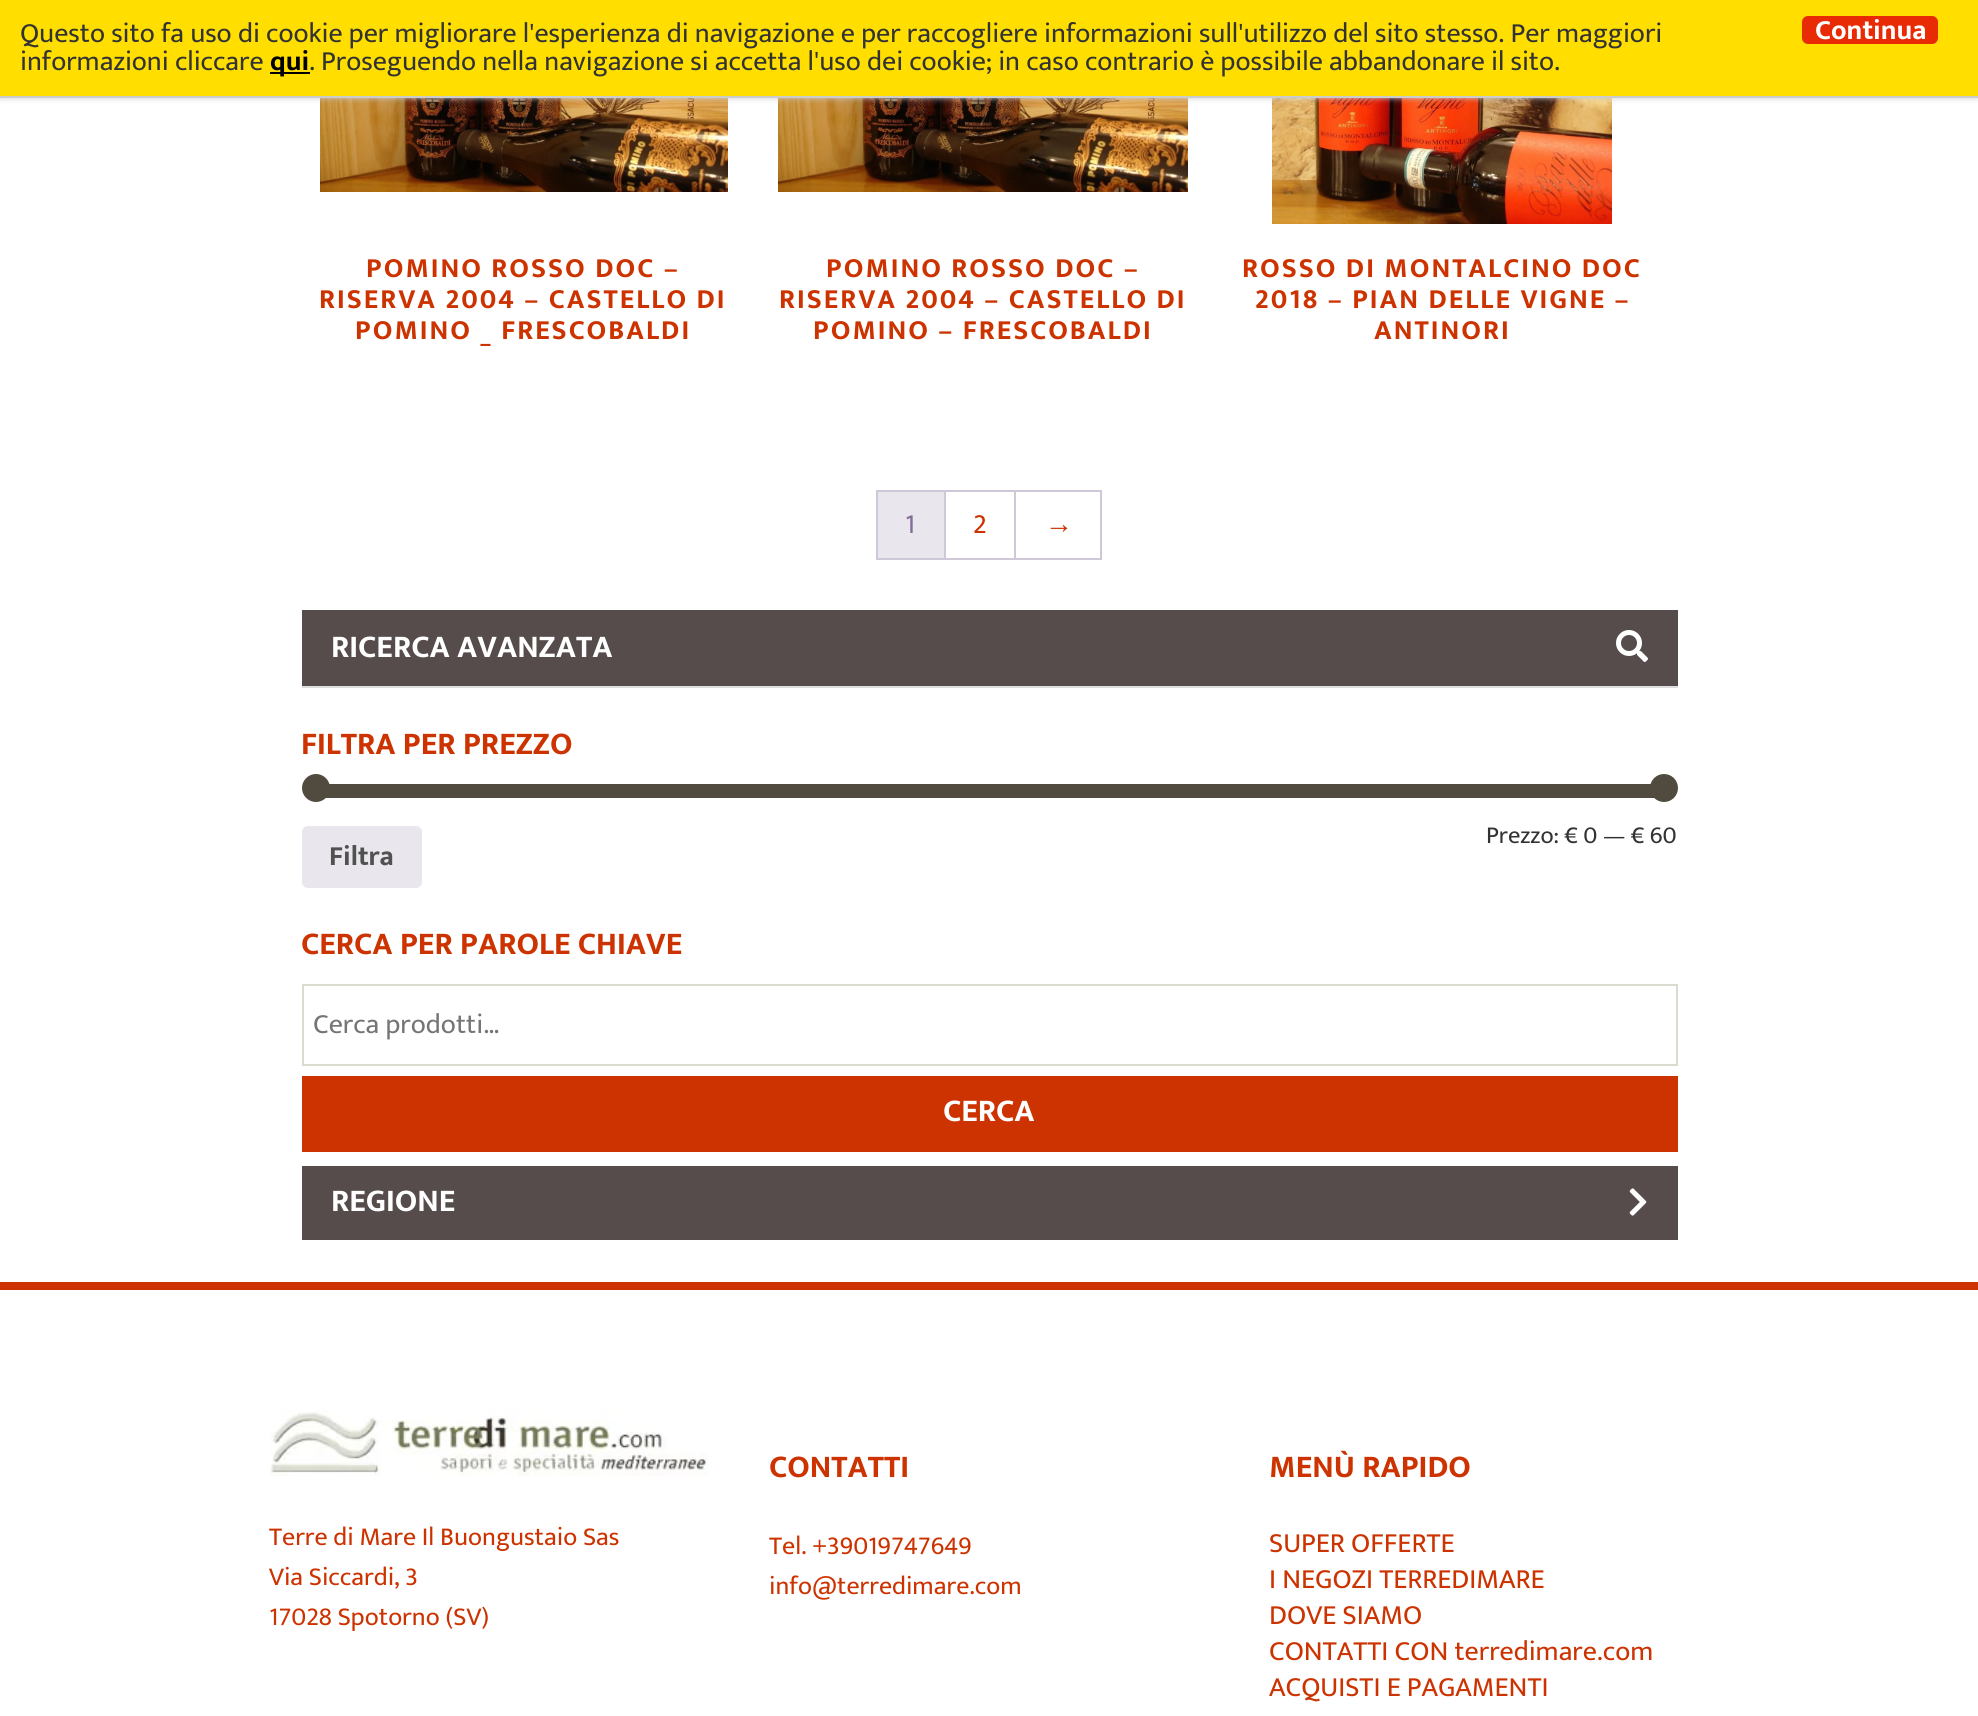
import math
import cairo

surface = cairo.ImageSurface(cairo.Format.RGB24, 1978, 1716)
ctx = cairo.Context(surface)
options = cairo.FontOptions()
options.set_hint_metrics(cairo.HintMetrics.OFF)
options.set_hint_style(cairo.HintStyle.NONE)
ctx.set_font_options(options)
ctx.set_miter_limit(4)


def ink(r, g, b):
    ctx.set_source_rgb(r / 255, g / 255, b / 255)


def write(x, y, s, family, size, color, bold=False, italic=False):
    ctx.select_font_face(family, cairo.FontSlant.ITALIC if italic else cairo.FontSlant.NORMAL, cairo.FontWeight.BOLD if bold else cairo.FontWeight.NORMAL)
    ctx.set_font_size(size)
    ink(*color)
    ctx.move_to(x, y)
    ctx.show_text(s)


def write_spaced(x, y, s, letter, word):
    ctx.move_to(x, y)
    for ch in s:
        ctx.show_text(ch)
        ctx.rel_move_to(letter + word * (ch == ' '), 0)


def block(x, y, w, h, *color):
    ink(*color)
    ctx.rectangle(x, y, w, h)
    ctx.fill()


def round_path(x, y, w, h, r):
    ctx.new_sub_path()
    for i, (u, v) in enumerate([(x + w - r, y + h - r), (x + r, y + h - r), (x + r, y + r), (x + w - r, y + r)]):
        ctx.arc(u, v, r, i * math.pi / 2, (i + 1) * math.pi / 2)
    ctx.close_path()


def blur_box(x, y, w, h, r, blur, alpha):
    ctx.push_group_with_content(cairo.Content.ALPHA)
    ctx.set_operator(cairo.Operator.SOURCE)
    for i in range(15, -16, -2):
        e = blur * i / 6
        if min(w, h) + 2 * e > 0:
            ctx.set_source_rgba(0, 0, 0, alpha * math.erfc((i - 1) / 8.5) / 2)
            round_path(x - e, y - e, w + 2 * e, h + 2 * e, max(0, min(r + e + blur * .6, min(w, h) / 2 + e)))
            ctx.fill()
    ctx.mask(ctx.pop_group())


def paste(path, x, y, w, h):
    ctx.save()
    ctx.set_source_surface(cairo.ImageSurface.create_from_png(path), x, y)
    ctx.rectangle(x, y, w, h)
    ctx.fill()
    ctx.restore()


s1 = dict(family="Mukta", size=28, color=(51, 51, 51))
s2 = dict(family="Mukta", size=28, color=(0, 0, 0), bold=True)
s3 = dict(family="Mukta", size=28, color=(255, 255, 255), bold=True)
s4 = dict(family="Mukta", size=28, color=(129, 110, 153))
s5 = dict(family="Mukta", size=28, color=(204, 51, 0))
s6 = dict(family="Liberation Sans", size=28, color=(204, 51, 0))
s7 = dict(family="Mukta", size=32, color=(255, 255, 255), bold=True)
s8 = dict(family="Mukta", size=32, color=(204, 51, 0), bold=True)
s9 = dict(family="Mukta", size=24.5, color=(51, 51, 51))
s10 = dict(family="Mukta", size=28, color=(81, 81, 81), bold=True)
s11 = dict(family="Mukta", size=28, color=(117, 117, 117))
s12 = dict(family="Mukta", size=26, color=(204, 51, 0))

ink(255, 255, 255)
ctx.paint()
paste("pic1.png", 320, 98, 408, 94)
paste("pic2.png", 778, 98, 410, 94)
paste("pic3.png", 1272, 98, 340, 126)
ink(204, 204, 204)
blur_box(0, 0, 1978, 98, 0, 3, 1)
block(0, 0, 1978, 96, 255, 222, 0)
block(0, 96, 1978, 2, 204, 204, 204)
write(20, 42, "Questo sito fa uso di cookie per migliorare l'esperienza di navigazione e per raccogliere informazioni sull'utilizzo del sito stesso. Per maggiori", **s1)
write(20, 70, "informazioni cliccare", **s1)
block(270, 72, 40, 2, 0, 0, 0)
write(270, 70, "qui", **s2)
write(309, 70, ". Proseguendo nella navigazione si accetta l'uso dei cookie; in caso contrario è possibile abbandonare il sito.", **s1)
ink(232, 43, 5)
round_path(1802, 16, 136, 28, 6)
ctx.fill()
write(1815, 39, "Continua", **s3)
ink(204, 51, 0)
write_spaced(366, 277, "POMINO ROSSO DOC –", 2, 0)
write_spaced(319, 308, "RISERVA 2004 – CASTELLO DI", 2, 0)
write_spaced(355, 339, "POMINO _ FRESCOBALDI", 2, 0)
write_spaced(826, 277, "POMINO ROSSO DOC –", 2, 0)
write_spaced(779, 308, "RISERVA 2004 – CASTELLO DI", 2, 0)
write_spaced(813, 339, "POMINO – FRESCOBALDI", 2, 0)
write_spaced(1242, 277, "ROSSO DI MONTALCINO DOC", 2, 0)
write_spaced(1255, 308, "2018 – PIAN DELLE VIGNE –", 2, 0)
write_spaced(1374, 339, "ANTINORI", 2, 0)
block(876, 490, 226, 2, 207, 200, 216)
block(876, 558, 226, 2, 207, 200, 216)
block(876, 490, 2, 70, 207, 200, 216)
block(944, 492, 2, 66, 207, 200, 216)
block(878, 492, 66, 66, 233, 230, 237)
write(905, 533, "1", **s4)
block(1014, 492, 2, 66, 207, 200, 216)
write(973, 533, "2", **s5)
block(1100, 492, 2, 66, 207, 200, 216)
write(1045, 533, "→", **s6)
block(302, 610, 1376, 76, 86, 76, 76)
write(331, 657, "RICERCA AVANZATA", **s7)
paste("pic4.png", 1616, 630, 32, 32)
block(302, 686, 1376, 2, 221, 221, 221)
write(301, 754, "FILTRA PER PREZZO", **s8)
block(325, 784, 1330, 14, 81, 74, 63)
ctx.new_path()
ctx.arc(316, 788, 14, 0, 2 * math.pi)
ctx.fill()
ctx.arc(1664, 788, 14, 0, 2 * math.pi)
ctx.fill()
write(1486, 843, "Prezzo: € 0 — € 60", **s9)
ink(233, 230, 237)
round_path(302, 826, 120, 62, 6)
ctx.fill()
write(329, 865, "Filtra", **s10)
write(301, 954, "CERCA PER PAROLE CHIAVE", **s8)
ctx.rectangle(303, 985, 1374, 80)
ink(218, 220, 208)
ctx.stroke()
write(313, 1033, "Cerca prodotti…", **s11)
block(302, 1076, 1376, 76, 204, 51, 0)
write(943, 1121, "CERCA", **s7)
block(302, 1166, 1376, 74, 86, 76, 76)
write(331, 1211, "REGIONE", **s7)
paste("pic5.png", 1629, 1188, 18, 28)
block(0, 1282, 1978, 8, 204, 51, 0)
paste("pic6.png", 270, 1410, 438, 66)
write(269, 1545, "Terre di Mare Il Buongustaio Sas", **s12)
write(269, 1585, "Via Siccardi, 3", **s12)
write(269, 1625, "17028 Spotorno (SV)", **s12)
write(769, 1477, "CONTATTI", **s8)
write(769, 1554, "Tel. +39019747649", **s12)
write(769, 1594, "info@terredimare.com", **s12)
write(1269, 1477, "MENÙ RAPIDO", **s8)
write(1269, 1552, "SUPER OFFERTE", **s5)
write(1269, 1588, "I NEGOZI TERREDIMARE", **s5)
write(1269, 1624, "DOVE SIAMO", **s5)
write(1269, 1660, "CONTATTI CON terredimare.com", **s5)
write(1269, 1696, "ACQUISTI E PAGAMENTI", **s5)
surface.write_to_png("screenshot.png")
